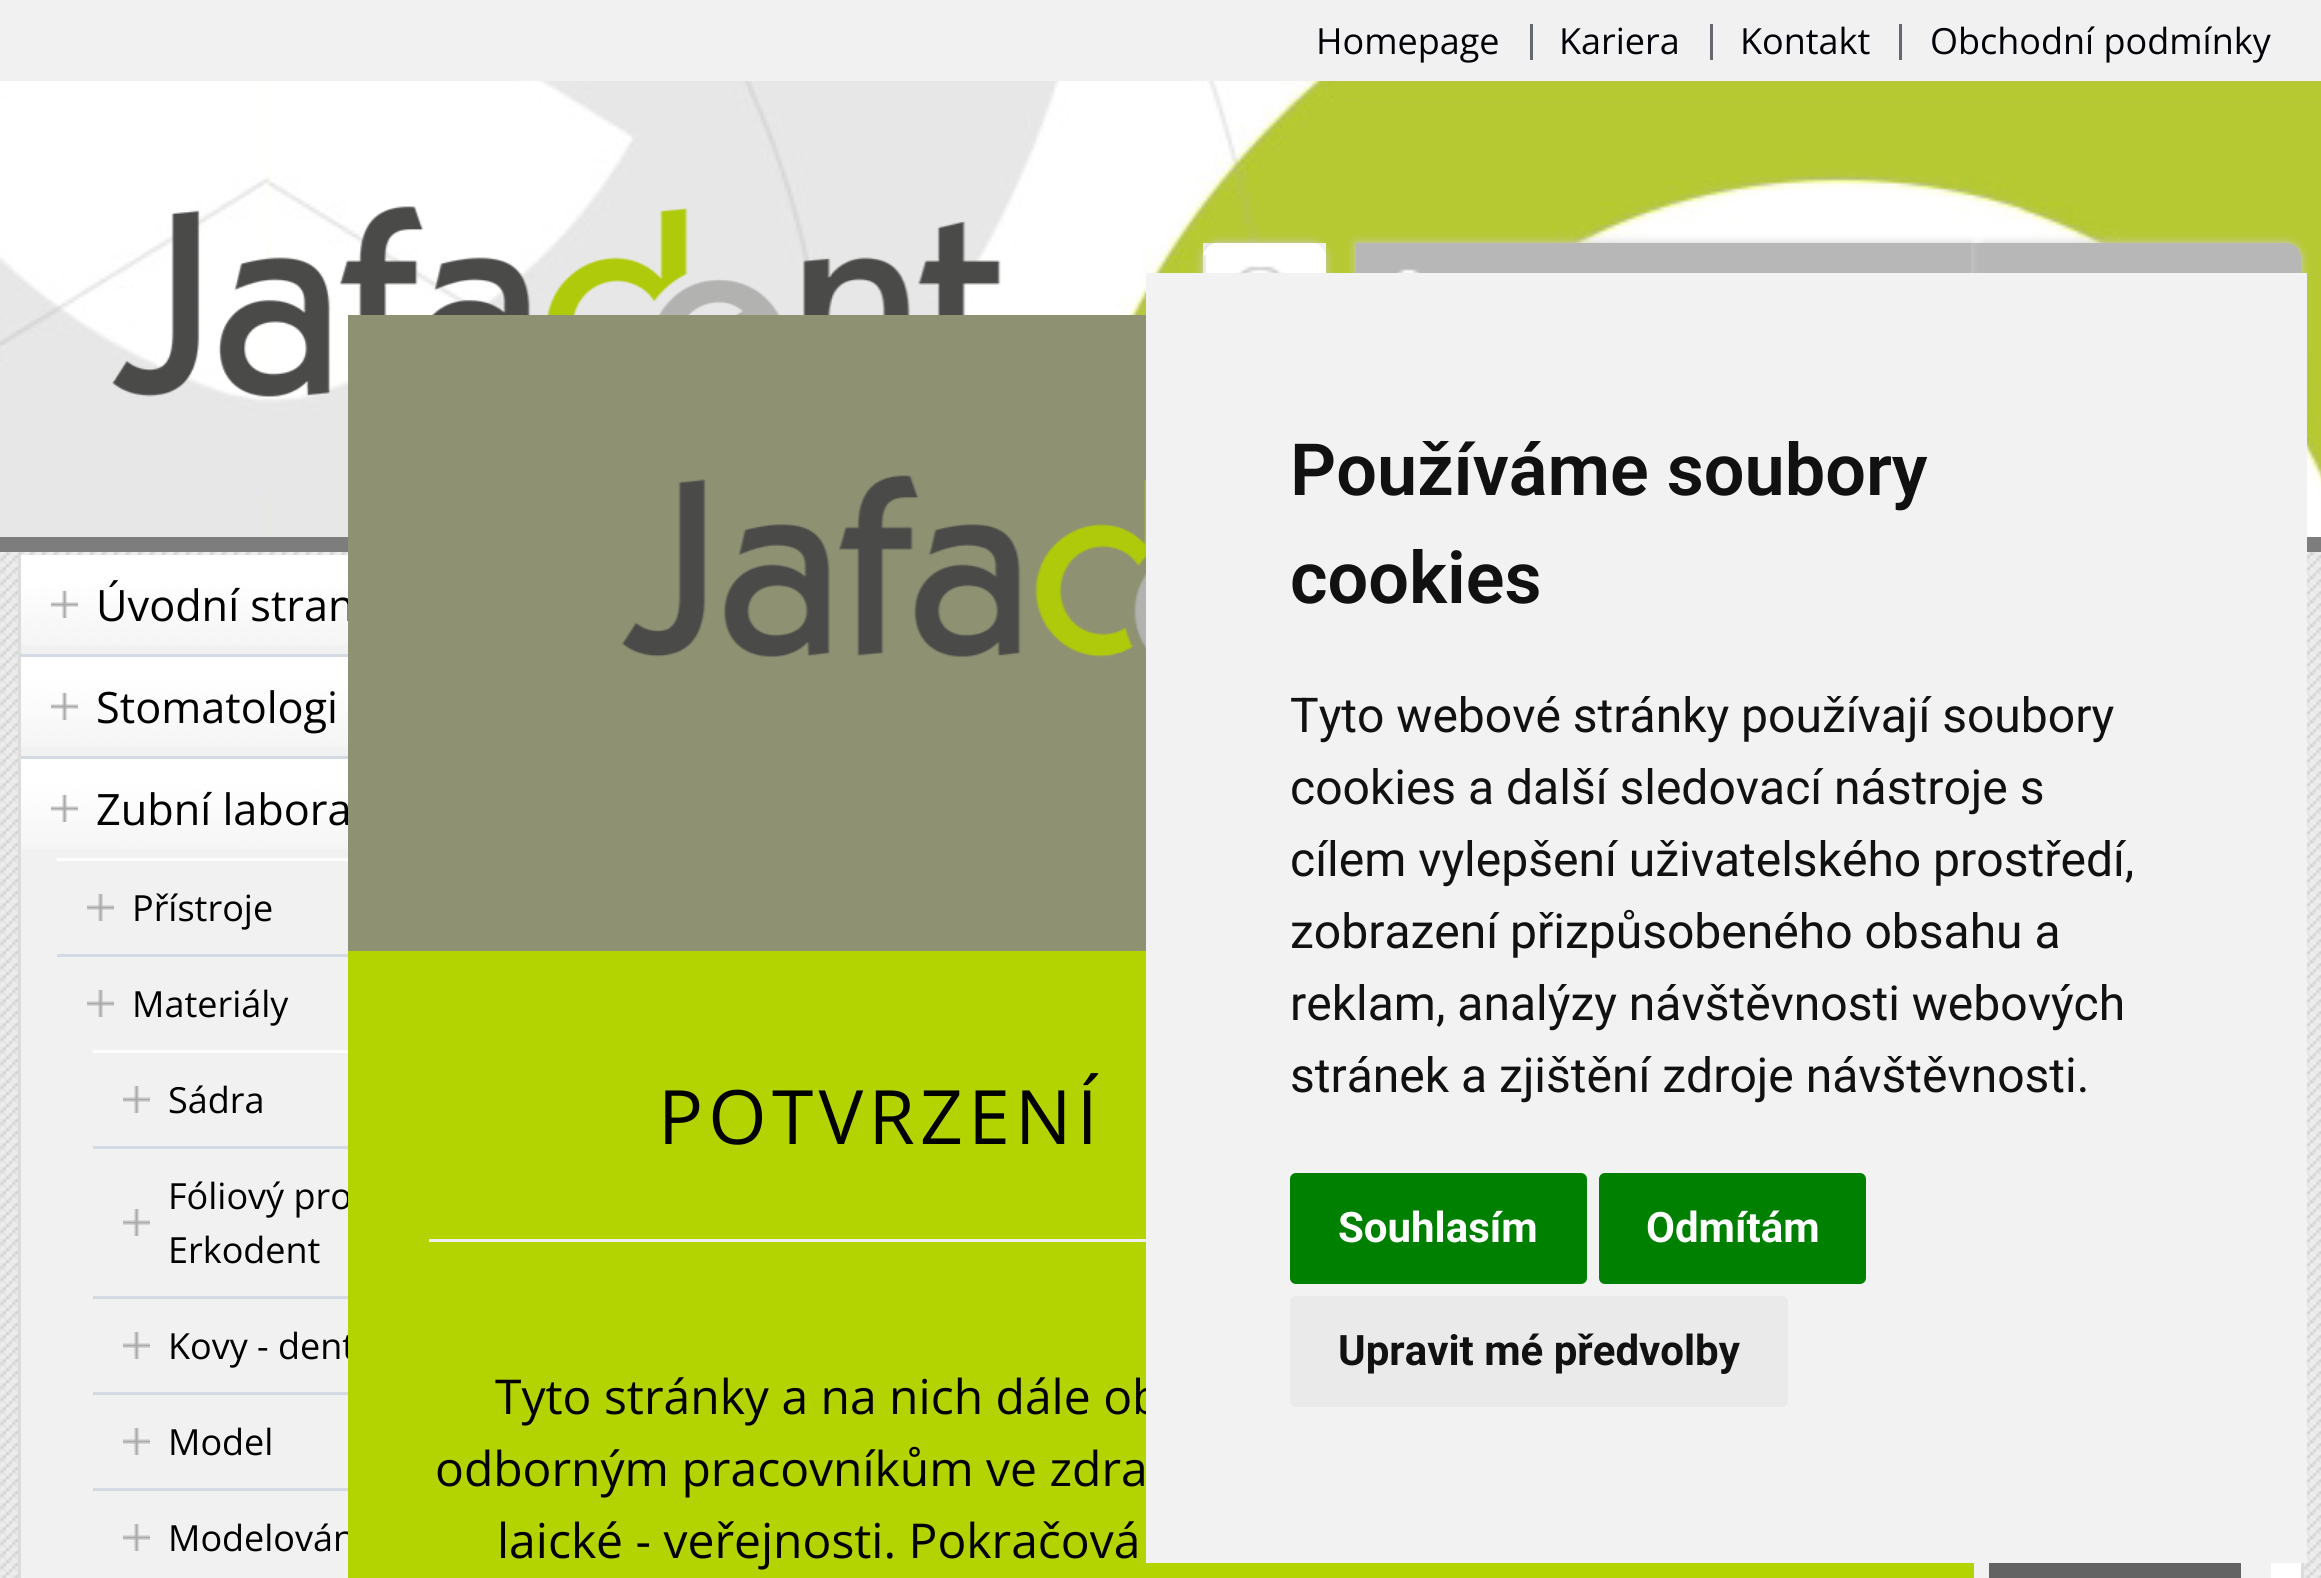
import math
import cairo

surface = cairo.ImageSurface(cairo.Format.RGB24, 2321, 1578)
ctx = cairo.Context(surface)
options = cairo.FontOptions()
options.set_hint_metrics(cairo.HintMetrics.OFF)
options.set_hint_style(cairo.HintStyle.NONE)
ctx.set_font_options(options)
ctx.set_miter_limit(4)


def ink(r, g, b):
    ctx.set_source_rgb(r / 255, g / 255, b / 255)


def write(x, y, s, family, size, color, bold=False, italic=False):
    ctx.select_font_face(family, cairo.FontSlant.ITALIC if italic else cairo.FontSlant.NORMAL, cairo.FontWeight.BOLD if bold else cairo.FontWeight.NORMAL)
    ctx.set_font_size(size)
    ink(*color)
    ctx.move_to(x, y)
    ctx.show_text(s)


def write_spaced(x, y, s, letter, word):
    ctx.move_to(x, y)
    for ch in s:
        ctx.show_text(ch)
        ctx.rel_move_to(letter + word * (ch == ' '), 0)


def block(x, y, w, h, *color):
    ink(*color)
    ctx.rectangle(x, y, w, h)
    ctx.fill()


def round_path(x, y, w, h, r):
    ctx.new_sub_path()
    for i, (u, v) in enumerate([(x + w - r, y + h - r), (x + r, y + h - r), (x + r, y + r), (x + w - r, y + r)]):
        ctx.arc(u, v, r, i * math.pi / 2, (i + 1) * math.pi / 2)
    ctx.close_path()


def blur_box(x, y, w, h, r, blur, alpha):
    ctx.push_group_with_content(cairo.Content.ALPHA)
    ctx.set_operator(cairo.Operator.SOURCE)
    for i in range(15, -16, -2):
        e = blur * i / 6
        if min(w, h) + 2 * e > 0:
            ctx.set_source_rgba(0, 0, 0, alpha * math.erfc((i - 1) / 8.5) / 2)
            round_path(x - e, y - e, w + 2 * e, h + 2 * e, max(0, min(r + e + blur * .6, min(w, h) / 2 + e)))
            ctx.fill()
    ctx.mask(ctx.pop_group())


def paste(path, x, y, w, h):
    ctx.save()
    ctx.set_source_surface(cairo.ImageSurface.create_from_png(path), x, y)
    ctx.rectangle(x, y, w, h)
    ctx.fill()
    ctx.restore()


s1 = dict(family="Open Sans", size=36, color=(0, 2, 8))
s2 = dict(family="Open Sans", size=43.25, color=(0, 0, 0))
s3 = dict(family="Open Sans", size=36, color=(0, 0, 0))
s4 = dict(family="Open Sans", size=48, color=(0, 0, 0))
s5 = dict(family="Roboto SemiBold", size=72, color=(17, 17, 17))
s6 = dict(family="Roboto", size=48, color=(17, 17, 17))
s7 = dict(family="Roboto", size=42, color=(255, 255, 255), bold=True)
s8 = dict(family="Roboto", size=42, color=(17, 17, 17), bold=True)

ink(255, 255, 255)
ctx.paint()
paste("pic1.png", 0, 552, 2321, 1026)
paste("pic2.png", 0, 81, 2321, 456)
block(0, 537, 2321, 15, 125, 125, 125)
block(0, 0, 2321, 81, 241, 241, 241)
write(1316, 54, "Homepage", **s1)
block(1530, 24, 3, 36, 100, 105, 111)
write(1559, 54, "Kariera", **s1)
block(1710, 24, 3, 36, 100, 105, 111)
write(1740, 54, "Kontakt", **s1)
block(1899, 24, 3, 36, 100, 105, 111)
write(1930, 54, "Obchodní podmínky", **s1)
paste("pic3.png", 112, 206, 889, 191)
ink(204, 204, 204)
blur_box(1971, 243, 330, 123, 15, 4.5, 1)
ink(183, 183, 183)
ctx.new_path()
ctx.move_to(1971, 243)
ctx.line_to(2286, 243)
ctx.curve_to(2294.5, 243, 2301, 249.5, 2301, 258)
ctx.line_to(2301, 351)
ctx.curve_to(2301, 359.5, 2294.5, 366, 2286, 366)
ctx.line_to(1971, 366)
ctx.close_path()
ctx.fill()
ink(204, 204, 204)
blur_box(1356, 243, 615, 123, 0, 4.5, 1)
block(1356, 243, 615, 30, 183, 183, 183)
paste("pic4.png", 1376, 269, 65, 4)
block(1203, 243, 123, 15, 241, 241, 241)
ctx.save()
ctx.set_fill_rule(cairo.FillRule.EVEN_ODD)
ctx.new_path()
ctx.move_to(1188, 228)
ctx.line_to(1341, 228)
ctx.line_to(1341, 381)
ctx.line_to(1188, 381)
ctx.close_path()
ctx.move_to(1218, 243)
ctx.line_to(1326, 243)
ctx.line_to(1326, 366)
ctx.line_to(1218, 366)
ctx.curve_to(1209.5, 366, 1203, 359.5, 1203, 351)
ctx.line_to(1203, 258)
ctx.curve_to(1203, 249.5, 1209.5, 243, 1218, 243)
ctx.close_path()
ctx.clip()
ink(204, 204, 204)
blur_box(1203, 243, 123, 123, 15, 4.5, 1)
ctx.restore()
ink(255, 255, 255)
round_path(1203, 243, 123, 123, 15)
ctx.fill()
paste("pic5.png", 1203, 255, 81, 18)
block(2271, 1563, 30, 15, 255, 255, 255)
block(2301, 1563, 3, 15, 220, 220, 220)
block(18, 555, 3, 1023, 220, 220, 220)
block(21, 645, 327, 9, 241, 241, 241)
paste("pic6.png", 21, 555, 327, 90)
block(21, 654, 327, 3, 212, 218, 228)
paste("pic7.png", 51, 591, 27, 27)
write(96, 621, "Úvodní stran", **s2)
block(21, 747, 327, 9, 241, 241, 241)
paste("pic6.png", 21, 657, 327, 90)
block(21, 756, 327, 3, 212, 218, 228)
paste("pic7.png", 51, 693, 27, 27)
write(96, 723, "Stomatologi", **s2)
block(21, 849, 327, 729, 241, 241, 241)
paste("pic6.png", 21, 759, 327, 90)
paste("pic7.png", 51, 795, 27, 27)
write(96, 825, "Zubní labora", **s2)
block(57, 858, 291, 3, 255, 255, 255)
block(57, 954, 291, 3, 212, 218, 228)
paste("pic8.png", 87, 894, 27, 27)
write(132, 921, "Přístroje", **s3)
paste("pic8.png", 87, 990, 27, 27)
write(132, 1017, "Materiály", **s3)
block(93, 1050, 255, 3, 255, 255, 255)
block(93, 1146, 255, 3, 212, 218, 228)
paste("pic8.png", 123, 1086, 27, 27)
write(168, 1113, "Sádra", **s3)
block(93, 1296, 255, 3, 212, 218, 228)
paste("pic8.png", 123, 1209, 27, 27)
write(168, 1209, "Fóliový pro", **s3)
write(168, 1263, "Erkodent", **s3)
block(93, 1392, 255, 3, 212, 218, 228)
paste("pic8.png", 123, 1332, 27, 27)
write(168, 1359, "Kovy - dent", **s3)
block(93, 1488, 255, 3, 212, 218, 228)
paste("pic8.png", 123, 1428, 27, 27)
write(168, 1455, "Model", **s3)
paste("pic8.png", 123, 1524, 27, 27)
write(168, 1551, "Modelován", **s3)
block(1974, 1563, 297, 15, 242, 242, 242)
block(1989, 1563, 252, 15, 99, 99, 99)
block(348, 951, 1626, 627, 179, 212, 0)
block(348, 315, 798, 636, 143, 145, 115)
paste("pic9.png", 622, 475, 524, 182)
block(429, 1239, 717, 3, 238, 238, 238)
ctx.set_font_size(75)
ink(0, 0, 0)
write_spaced(658, 1144, "POTVRZENÍ", 5.25, 0)
write(495, 1414, "Tyto stránky a na nich dále ob", **s4)
write(435, 1486, "odborným pracovníkům ve zdra", **s4)
write(497, 1558, "laické - veřejnosti. Pokračová", **s4)
block(1146, 273, 1161, 1290, 242, 242, 242)
write(1290, 495, "Používáme soubory", **s5)
write(1290, 603, "cookies", **s5)
write(1290, 732, "Tyto webové stránky používají soubory", **s6)
write(1290, 804, "cookies a další sledovací nástroje s", **s6)
write(1290, 876, "cílem vylepšení uživatelského prostředí,", **s6)
write(1290, 948, "zobrazení přizpůsobeného obsahu a", **s6)
write(1290, 1020, "reklam, analýzy návštěvnosti webových", **s6)
write(1290, 1092, "stránek a zjištění zdroje návštěvnosti.", **s6)
ink(0, 128, 0)
round_path(1290, 1173, 297, 111, 6)
ctx.fill()
write(1338, 1242, "Souhlasím", **s7)
ink(0, 128, 0)
round_path(1599, 1173, 267, 111, 6)
ctx.fill()
write(1646, 1242, "Odmítám", **s7)
ink(234, 234, 234)
round_path(1290, 1296, 498, 111, 6)
ctx.fill()
write(1338, 1365, "Upravit mé předvolby", **s8)
surface.write_to_png("screenshot.png")
